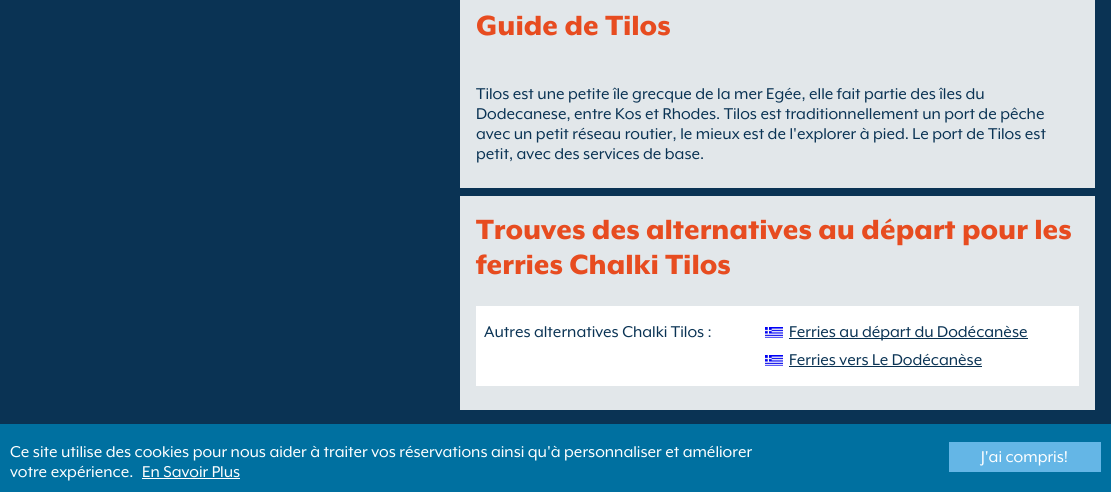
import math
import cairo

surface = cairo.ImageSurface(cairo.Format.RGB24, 1111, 492)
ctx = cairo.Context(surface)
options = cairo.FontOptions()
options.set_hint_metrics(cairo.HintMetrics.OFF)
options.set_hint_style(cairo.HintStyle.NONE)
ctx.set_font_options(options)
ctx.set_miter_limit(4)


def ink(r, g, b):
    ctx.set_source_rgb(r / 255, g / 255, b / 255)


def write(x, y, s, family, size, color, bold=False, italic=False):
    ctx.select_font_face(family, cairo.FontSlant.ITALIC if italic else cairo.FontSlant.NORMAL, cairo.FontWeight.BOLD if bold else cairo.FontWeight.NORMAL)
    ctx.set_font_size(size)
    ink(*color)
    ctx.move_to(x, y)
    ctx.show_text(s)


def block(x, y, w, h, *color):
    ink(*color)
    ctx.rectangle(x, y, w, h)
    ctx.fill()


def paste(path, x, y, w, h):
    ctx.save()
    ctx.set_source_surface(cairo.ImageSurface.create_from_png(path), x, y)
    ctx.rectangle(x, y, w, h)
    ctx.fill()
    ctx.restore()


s1 = dict(family="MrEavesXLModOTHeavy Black", size=32, color=(231, 76, 32))
s2 = dict(family="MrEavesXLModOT", size=18, color=(10, 51, 84))
s3 = dict(family="MrEavesXLModOT", size=18, color=(255, 255, 255))

ink(10, 51, 84)
ctx.paint()
block(460, 0, 635, 188, 226, 231, 234)
write(476, 35, "Guide de Tilos", **s1)
write(476, 99, "Tilos est une petite île grecque de la mer Egée, elle fait partie des îles du", **s2)
write(476, 119, "Dodecanese, entre Kos et Rhodes. Tilos est traditionnellement un port de pêche", **s2)
write(476, 139, "avec un petit réseau routier, le mieux est de l'explorer à pied. Le port de Tilos est", **s2)
write(476, 159, "petit, avec des services de base.", **s2)
block(460, 196, 635, 214, 226, 231, 234)
write(476, 239, "Trouves des alternatives au départ pour les", **s1)
write(476, 274, "ferries Chalki Tilos", **s1)
block(476, 306, 603, 80, 255, 255, 255)
write(484, 337, "Autres alternatives Chalki Tilos :", **s2)
paste("pic1.png", 765, 327, 18, 11)
block(789, 338, 239, 1, 10, 50, 82)
write(789, 337, "Ferries au départ du Dodécanèse", **s2)
paste("pic1.png", 765, 355, 18, 11)
write(789, 365, "Ferries vers Le Dodécanèse", **s2)
block(789, 366, 193, 1, 10, 50, 82)
block(0, 424, 1111, 68, 0, 112, 160)
write(10, 457, "Ce site utilise des cookies pour nous aider à traiter vos réservations ainsi qu'à personnaliser et améliorer", **s3)
write(10, 477, "votre expérience.", **s3)
write(142, 477, "En Savoir Plus", **s3)
block(142, 478, 98, 1, 255, 255, 255)
block(949, 442, 152, 30, 100, 182, 230)
write(981, 462, "J'ai compris!", **s3)
surface.write_to_png("screenshot.png")
